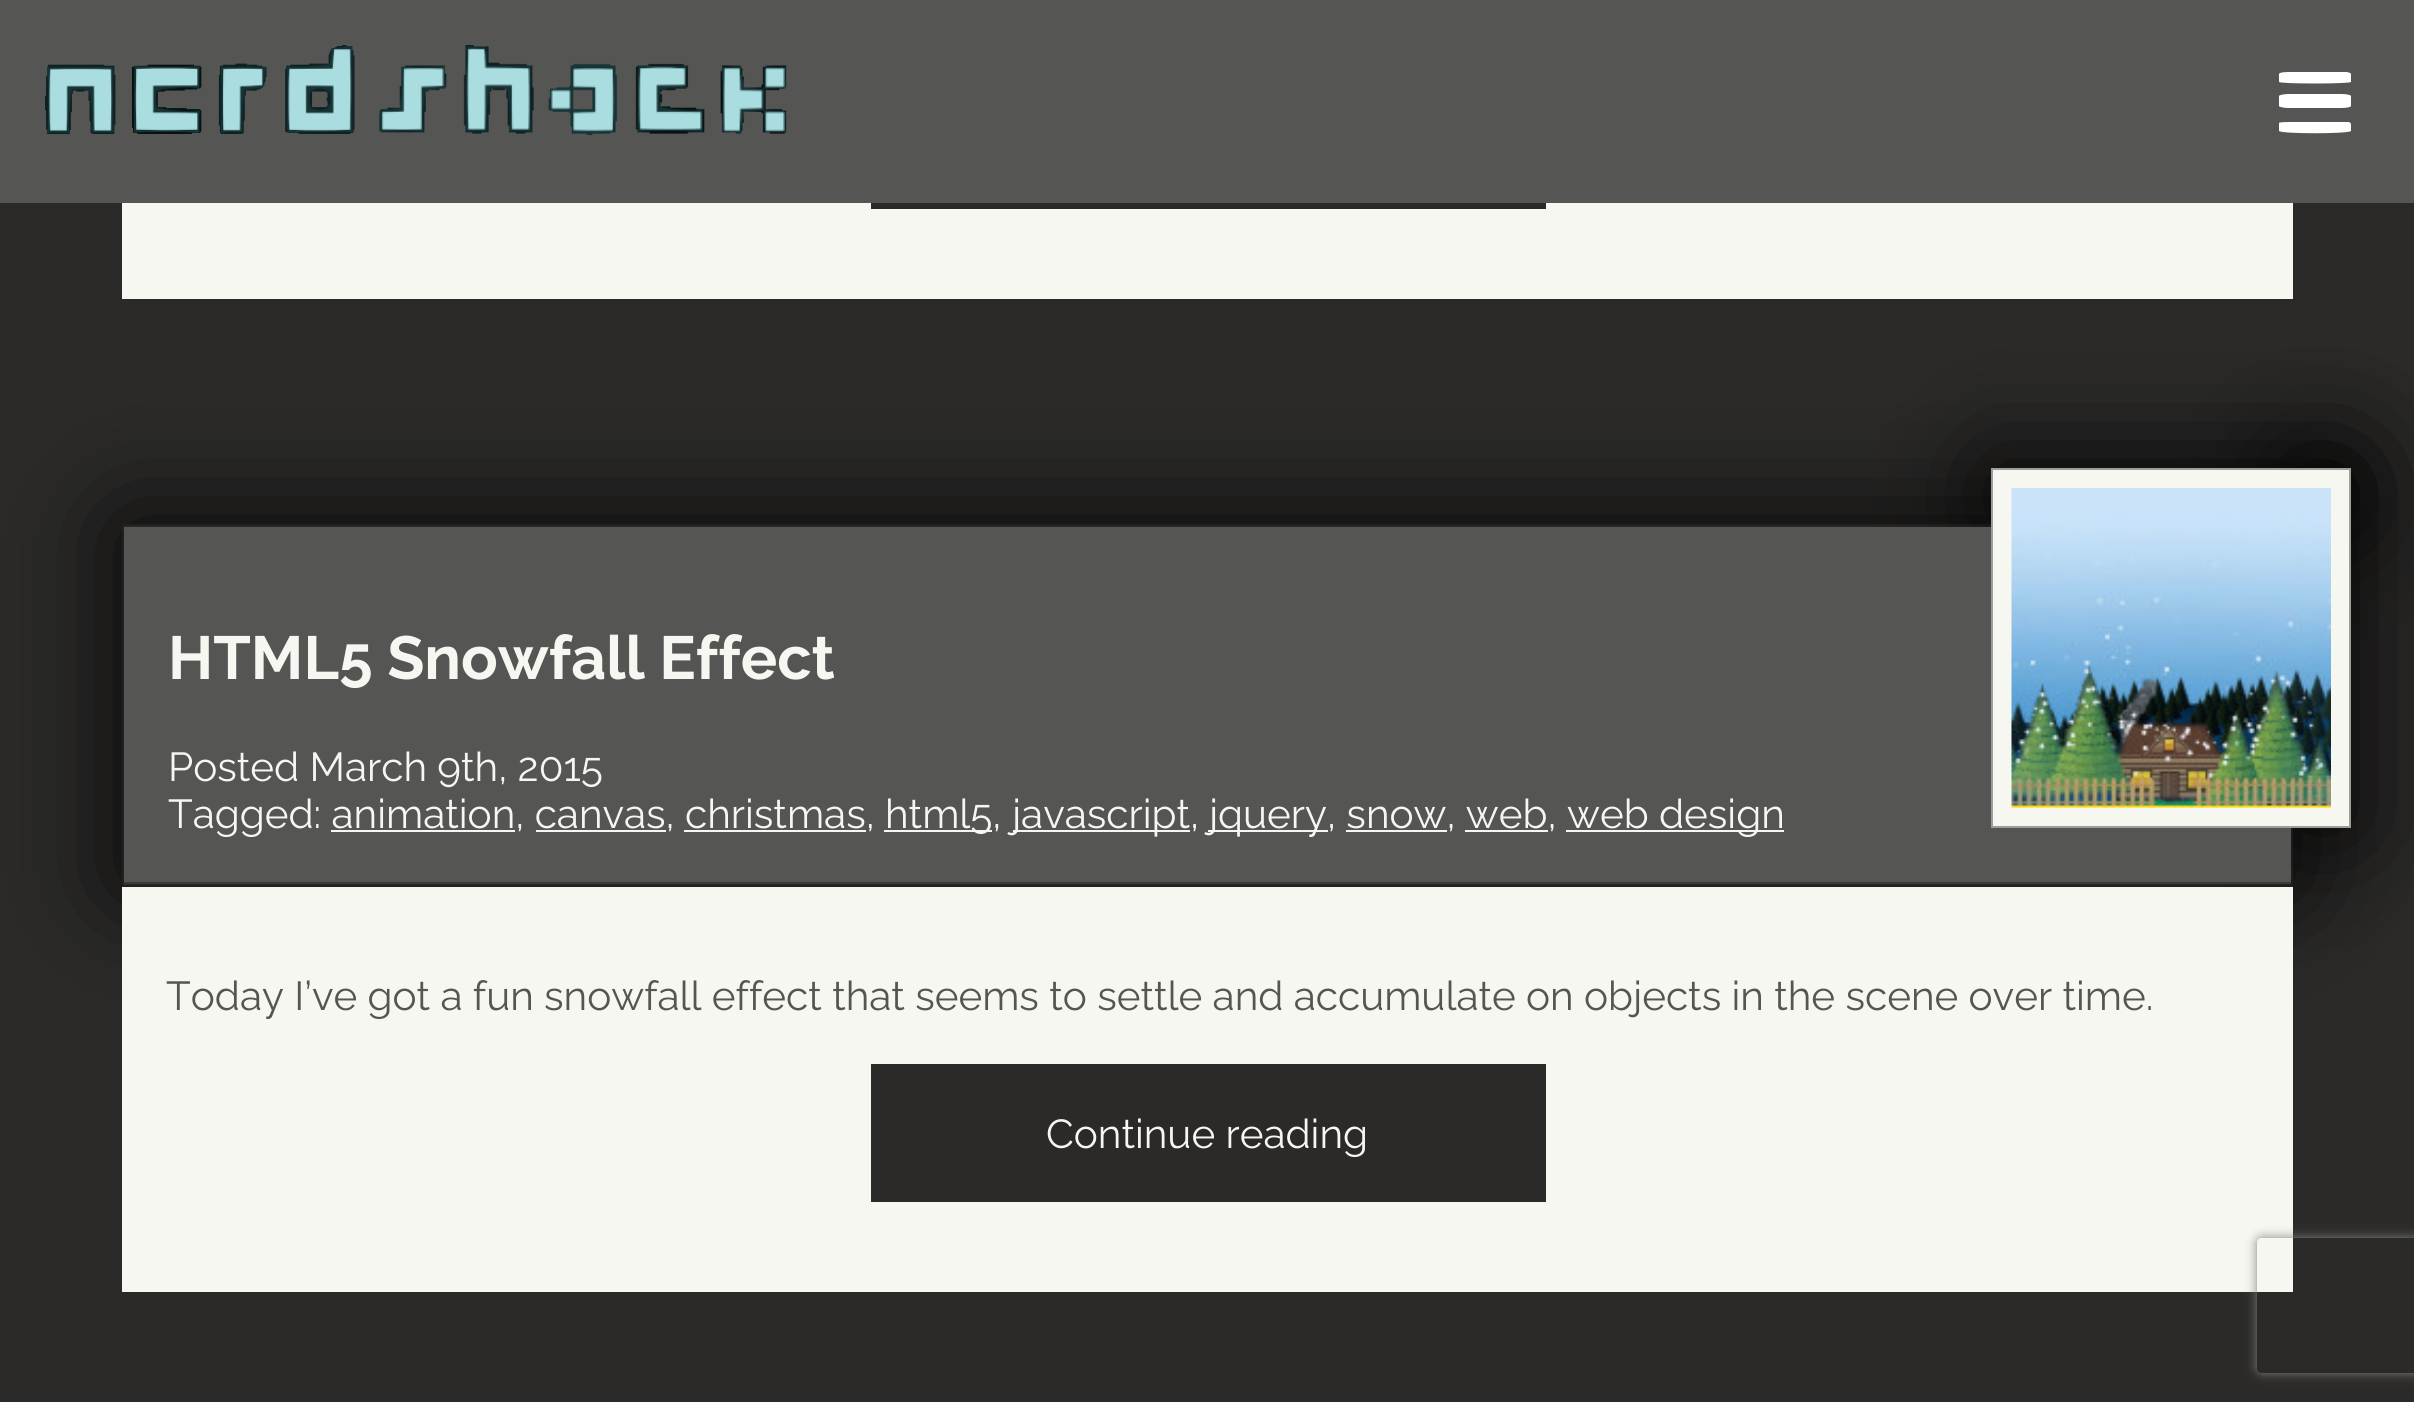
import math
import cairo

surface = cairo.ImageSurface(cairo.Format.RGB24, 2414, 1402)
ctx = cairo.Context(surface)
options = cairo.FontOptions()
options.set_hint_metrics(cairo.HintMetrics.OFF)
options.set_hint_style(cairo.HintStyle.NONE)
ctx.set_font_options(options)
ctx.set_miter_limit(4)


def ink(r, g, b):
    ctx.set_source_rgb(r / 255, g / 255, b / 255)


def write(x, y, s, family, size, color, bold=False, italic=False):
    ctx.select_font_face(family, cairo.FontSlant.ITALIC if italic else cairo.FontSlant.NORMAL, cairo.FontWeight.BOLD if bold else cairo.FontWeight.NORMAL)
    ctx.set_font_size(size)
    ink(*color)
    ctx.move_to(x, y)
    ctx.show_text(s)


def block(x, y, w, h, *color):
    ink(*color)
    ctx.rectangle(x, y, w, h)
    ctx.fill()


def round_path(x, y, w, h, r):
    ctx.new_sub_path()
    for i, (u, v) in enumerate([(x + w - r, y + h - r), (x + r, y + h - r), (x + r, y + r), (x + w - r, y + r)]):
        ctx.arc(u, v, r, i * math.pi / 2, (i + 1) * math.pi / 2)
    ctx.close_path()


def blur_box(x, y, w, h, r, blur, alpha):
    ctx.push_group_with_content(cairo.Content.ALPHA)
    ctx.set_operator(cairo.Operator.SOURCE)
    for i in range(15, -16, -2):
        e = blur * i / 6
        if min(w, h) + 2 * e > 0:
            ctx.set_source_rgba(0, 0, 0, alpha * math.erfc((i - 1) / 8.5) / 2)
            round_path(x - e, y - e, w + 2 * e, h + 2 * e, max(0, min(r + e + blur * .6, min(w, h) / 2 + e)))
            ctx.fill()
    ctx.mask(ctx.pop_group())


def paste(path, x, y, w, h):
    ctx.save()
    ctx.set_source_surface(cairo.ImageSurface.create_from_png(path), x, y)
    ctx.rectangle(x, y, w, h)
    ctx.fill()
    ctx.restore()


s1 = dict(family="Raleway", size=60.75, color=(247, 247, 241), bold=True)
s2 = dict(family="Raleway", size=40.45, color=(247, 247, 241))
s3 = dict(family="Raleway", size=40.45, color=(85, 85, 84))

ink(43, 42, 41)
ctx.paint()
block(0, 0, 2414, 203, 85, 85, 84)
paste("pic1.png", 45, 45, 310, 89)
paste("pic2.png", 379, 45, 408, 90)
ink(255, 255, 255)
ctx.new_path()
ctx.move_to(2289, 72)
ctx.line_to(2347, 72)
ctx.curve_to(2349, 73, 2351, 72, 2351, 75)
ctx.line_to(2351, 82)
ctx.curve_to(2348, 84, 2282, 84, 2279, 82)
ctx.line_to(2279, 74)
ctx.curve_to(2279, 72, 2288, 72, 2289, 72)
ctx.close_path()
ctx.fill()
ctx.new_path()
ctx.move_to(2289, 94)
ctx.line_to(2341, 94)
ctx.curve_to(2347, 94, 2351, 95, 2351, 96)
ctx.line_to(2351, 106)
ctx.curve_to(2351, 107, 2347, 108, 2341, 108)
ctx.line_to(2289, 108)
ctx.curve_to(2284, 108, 2279, 107, 2279, 106)
ctx.line_to(2279, 96)
ctx.curve_to(2279, 95, 2284, 94, 2289, 94)
ctx.close_path()
ctx.fill()
ctx.new_path()
ctx.move_to(2289, 122)
ctx.line_to(2347, 122)
ctx.curve_to(2349, 122, 2351, 122, 2351, 125)
ctx.line_to(2351, 131)
ctx.curve_to(2348, 134, 2282, 134, 2279, 131)
ctx.line_to(2279, 123)
ctx.curve_to(2279, 122, 2288, 122, 2289, 122)
ctx.close_path()
ctx.fill()
block(122, 203, 2171, 96, 247, 247, 241)
block(871, 203, 675, 6, 43, 42, 41)
ink(0, 0, 0)
blur_box(1991, 468, 360, 56, 0, 56, 0.9)
blur_box(2293, 468, 58, 360, 0, 56, 0.9)
ctx.save()
ctx.set_fill_rule(cairo.FillRule.EVEN_ODD)
ctx.new_path()
ctx.move_to(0, 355)
ctx.line_to(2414, 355)
ctx.line_to(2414, 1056)
ctx.line_to(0, 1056)
ctx.close_path()
ctx.move_to(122, 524)
ctx.line_to(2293, 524)
ctx.line_to(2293, 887)
ctx.line_to(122, 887)
ctx.close_path()
ctx.clip()
blur_box(122, 524, 2171, 363, 0, 56, 0.9)
ctx.restore()
ctx.rectangle(123, 525, 2169, 361)
ctx.set_source_rgba(0.082, 0.082, 0.078, 0.4)
ctx.stroke()
block(124, 527, 2167, 355, 85, 85, 84)
block(124, 882, 2167, 2, 59, 59, 58)
write(168, 679, "HTML5 Snowfall Effect", **s1)
write(168, 781, "Posted March 9th, 2015", **s2)
write(168, 828, "Tagged: animation, canvas, christmas,", **s2)
block(331, 830, 184, 2, 247, 247, 241)
block(536, 830, 130, 2, 247, 247, 241)
block(684, 830, 182, 2, 247, 247, 241)
block(884, 830, 108, 2, 247, 247, 241)
write(885, 828, "html5,", **s2)
block(1013, 830, 177, 2, 247, 247, 241)
write(1012, 828, "javascript,", **s2)
block(1208, 830, 120, 2, 247, 247, 241)
write(1209, 828, "jquery, snow, web,", **s2)
block(1346, 830, 101, 2, 247, 247, 241)
block(1465, 830, 83, 2, 247, 247, 241)
block(1566, 830, 218, 2, 247, 247, 241)
write(1567, 828, "web design", **s2)
ctx.rectangle(1992, 469, 358, 358)
ctx.fill_preserve()
ink(157, 157, 153)
ctx.stroke()
paste("pic3.png", 2011, 488, 320, 320)
block(122, 887, 2171, 405, 247, 247, 241)
write(166, 1010, "Today I’ve got a fun snowfall effect that seems to settle and accumulate on objects in the scene over time.", **s3)
block(871, 1064, 675, 138, 43, 42, 41)
write(1046, 1148, "Continue reading", **s2)
ctx.save()
ctx.set_fill_rule(cairo.FillRule.EVEN_ODD)
ctx.new_path()
ctx.move_to(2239, 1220)
ctx.line_to(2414, 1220)
ctx.line_to(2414, 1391)
ctx.line_to(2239, 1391)
ctx.close_path()
ctx.move_to(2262, 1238)
ctx.line_to(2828, 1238)
ctx.curve_to(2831, 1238, 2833, 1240, 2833, 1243)
ctx.line_to(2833, 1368)
ctx.curve_to(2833, 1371, 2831, 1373, 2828, 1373)
ctx.line_to(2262, 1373)
ctx.curve_to(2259, 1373, 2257, 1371, 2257, 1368)
ctx.line_to(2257, 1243)
ctx.curve_to(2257, 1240, 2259, 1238, 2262, 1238)
ctx.close_path()
ctx.clip()
ink(128, 128, 128)
blur_box(2257, 1238, 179, 135, 5, 5.5, 1)
ctx.restore()
surface.write_to_png("screenshot.png")
